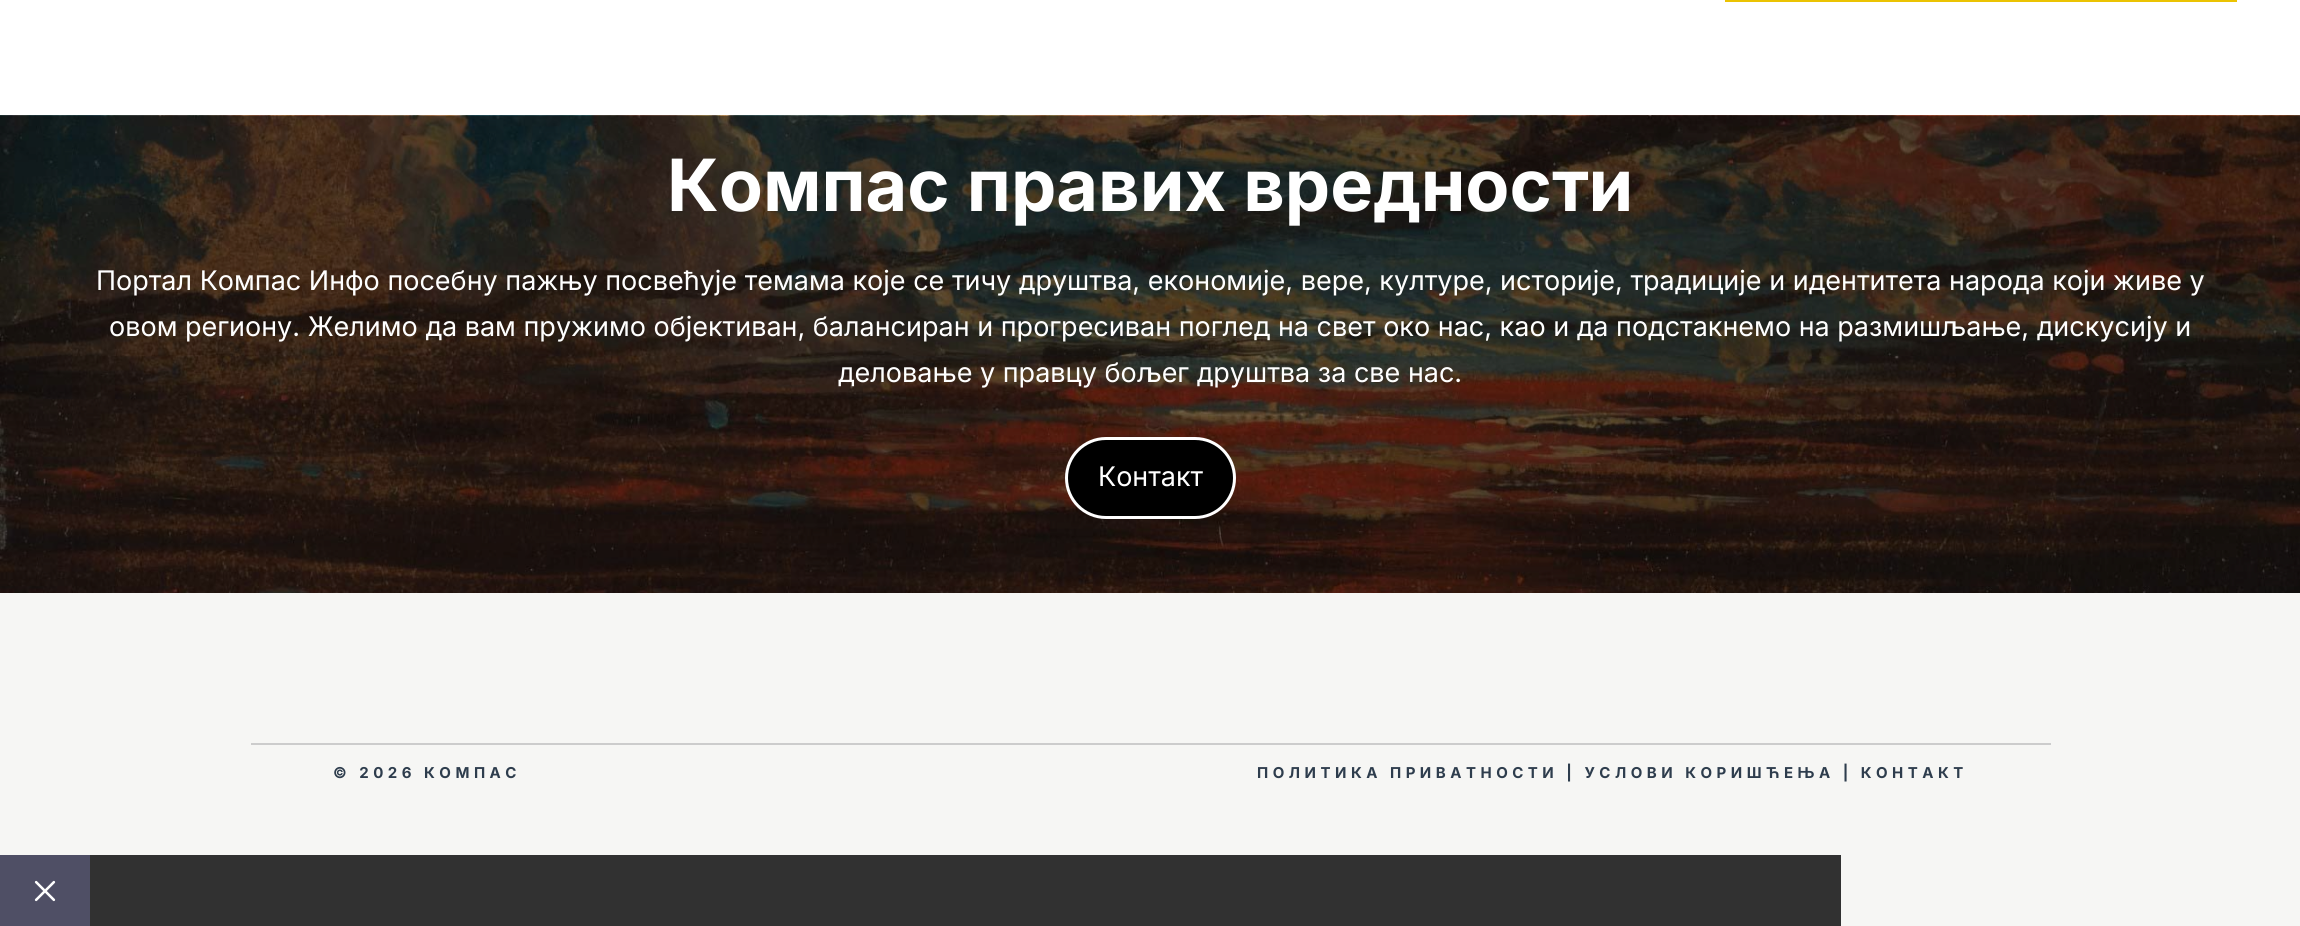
import math
import cairo

surface = cairo.ImageSurface(cairo.Format.RGB24, 2300, 926)
ctx = cairo.Context(surface)
options = cairo.FontOptions()
options.set_hint_metrics(cairo.HintMetrics.OFF)
options.set_hint_style(cairo.HintStyle.NONE)
ctx.set_font_options(options)
ctx.set_miter_limit(4)


def ink(r, g, b):
    ctx.set_source_rgb(r / 255, g / 255, b / 255)


def write(x, y, s, family, size, color, bold=False, italic=False):
    ctx.select_font_face(family, cairo.FontSlant.ITALIC if italic else cairo.FontSlant.NORMAL, cairo.FontWeight.BOLD if bold else cairo.FontWeight.NORMAL)
    ctx.set_font_size(size)
    ink(*color)
    ctx.move_to(x, y)
    ctx.show_text(s)


def write_spaced(x, y, s, letter, word):
    ctx.move_to(x, y)
    for ch in s:
        ctx.show_text(ch)
        ctx.rel_move_to(letter + word * (ch == ' '), 0)


def block(x, y, w, h, *color):
    ink(*color)
    ctx.rectangle(x, y, w, h)
    ctx.fill()


def round_path(x, y, w, h, r):
    ctx.new_sub_path()
    for i, (u, v) in enumerate([(x + w - r, y + h - r), (x + r, y + h - r), (x + r, y + r), (x + w - r, y + r)]):
        ctx.arc(u, v, r, i * math.pi / 2, (i + 1) * math.pi / 2)
    ctx.close_path()


def paste(path, x, y, w, h):
    ctx.save()
    ctx.set_source_surface(cairo.ImageSurface.create_from_png(path), x, y)
    ctx.rectangle(x, y, w, h)
    ctx.fill()
    ctx.restore()


s1 = dict(family="Inter", size=72, color=(255, 255, 255), bold=True)
s2 = dict(family="Inter", size=27, color=(255, 255, 255))

ink(246, 246, 244)
ctx.paint()
block(0, 0, 2300, 115, 255, 255, 255)
block(1725, 0, 512, 2, 235, 195, 2)
paste("pic1.png", 0, 115, 2300, 478)
write(667, 211, "Компас правих вредности", **s1)
write(96, 290, "Портал Компас Инфо посебну пажњу посвећује темама које се тичу друштва, економије, вере, културе, историје, традиције и идентитета народа који живе у", **s2)
write(109, 336, "овом региону. Желимо да вам пружимо објективан, балансиран и прогресиван поглед на свет око нас, као и да подстакнемо на размишљање, дискусију и", **s2)
write(838, 382, "деловање у правцу бољег друштва за све нас.", **s2)
ink(0, 0, 0)
round_path(1066.5, 438.5, 168, 79, 39.5)
ctx.fill_preserve()
ink(255, 255, 255)
ctx.set_line_width(3)
ctx.stroke()
write(1098, 486, "Контакт", **s2)
block(251, 743, 1800, 2, 204, 204, 204)
ctx.select_font_face("Inter", cairo.FontSlant.NORMAL, cairo.FontWeight.BOLD)
ctx.set_font_size(15)
ink(46, 61, 77)
write_spaced(333, 778, "© 2026 КОМПАС", 4.5, 0)
write_spaced(1257, 778, "ПОЛИТИКА ПРИВАТНОСТИ | УСЛОВИ КОРИШЋЕЊА | КОНТАКТ", 4.5, 0)
block(90, 855, 1751, 71, 49, 49, 49)
block(0, 855, 90, 71, 79, 79, 101)
paste("pic2.png", 34, 880, 22, 22)
surface.write_to_png("screenshot.png")
